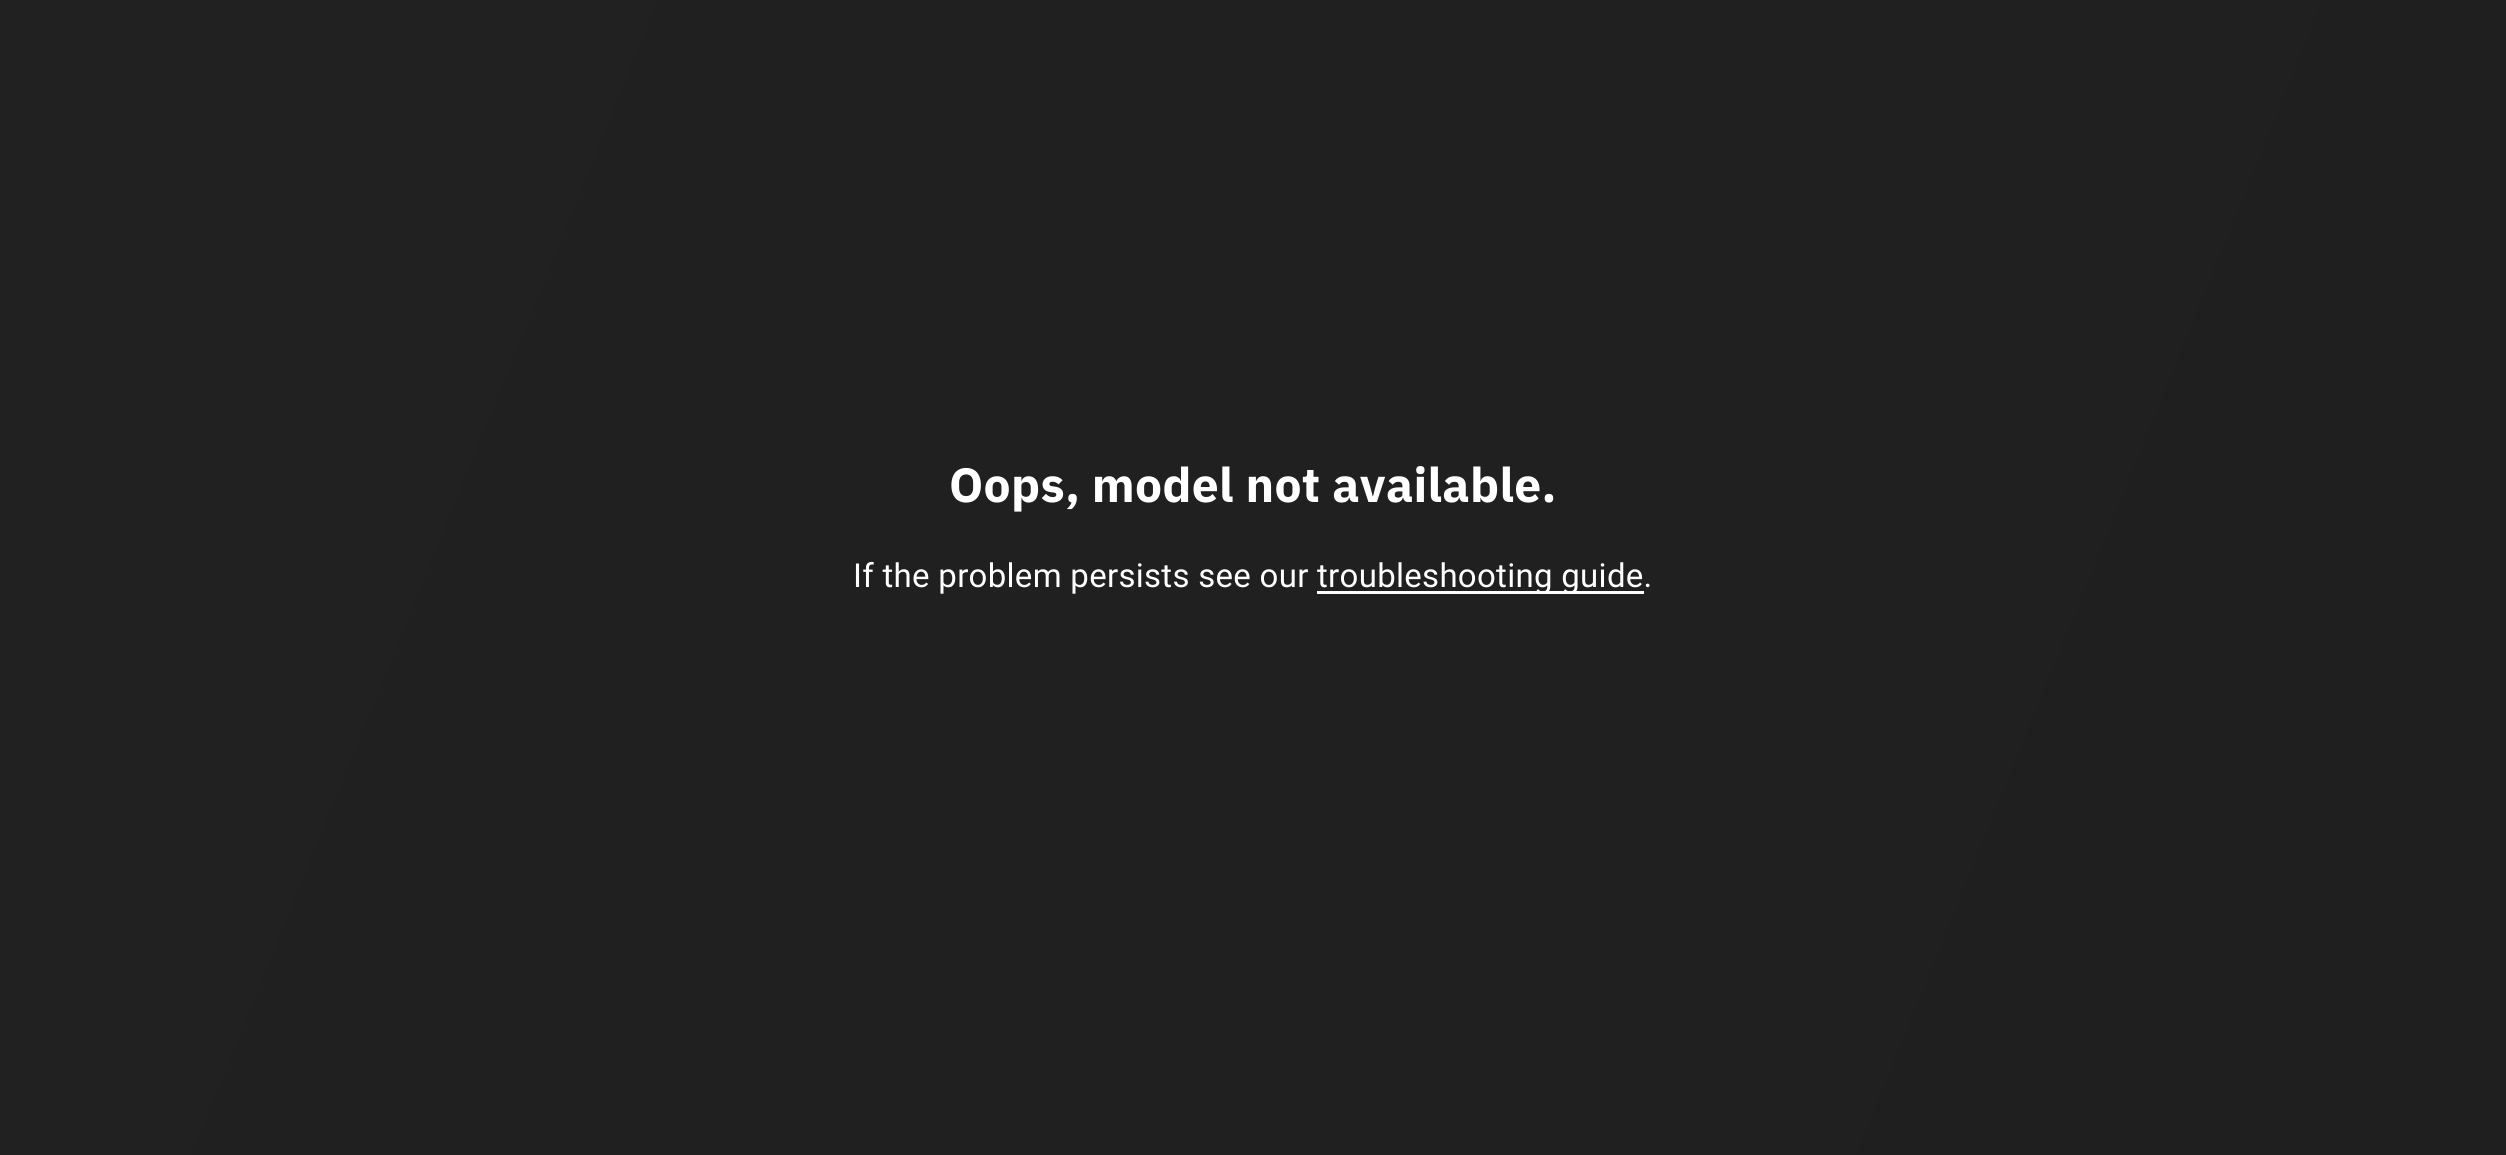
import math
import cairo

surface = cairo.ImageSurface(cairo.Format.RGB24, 2506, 1155)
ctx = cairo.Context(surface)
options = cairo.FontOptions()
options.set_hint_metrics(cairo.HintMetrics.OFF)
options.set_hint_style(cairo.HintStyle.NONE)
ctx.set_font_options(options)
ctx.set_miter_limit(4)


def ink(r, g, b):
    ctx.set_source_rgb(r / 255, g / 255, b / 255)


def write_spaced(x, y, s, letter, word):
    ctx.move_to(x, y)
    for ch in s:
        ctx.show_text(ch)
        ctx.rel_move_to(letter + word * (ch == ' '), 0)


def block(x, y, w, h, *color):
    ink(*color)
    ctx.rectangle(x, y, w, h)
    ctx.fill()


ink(255, 255, 255)
ctx.paint()
gradient = cairo.LinearGradient(-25, 61, 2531, 1094)
gradient.add_color_stop_rgba(0, 0.129, 0.129, 0.129, 1)
gradient.add_color_stop_rgba(1, 0.122, 0.122, 0.122, 1)
ctx.set_source(gradient)
ctx.rectangle(0, 0, 2506, 1155)
ctx.fill()
ctx.select_font_face("IBM Plex Sans", cairo.FontSlant.NORMAL, cairo.FontWeight.BOLD)
ctx.set_font_size(48)
ink(255, 255, 255)
write_spaced(949, 502, "Oops, model not available.", 0.3, 0)
ctx.select_font_face("Roboto")
ctx.set_font_size(33)
write_spaced(853, 587, "If the problem persists see our", 0.3, 0)
block(1317, 591, 327, 3, 255, 255, 255)
write_spaced(1317, 587, "troubleshooting guide.", 0.3, 0)
surface.write_to_png("screenshot.png")
